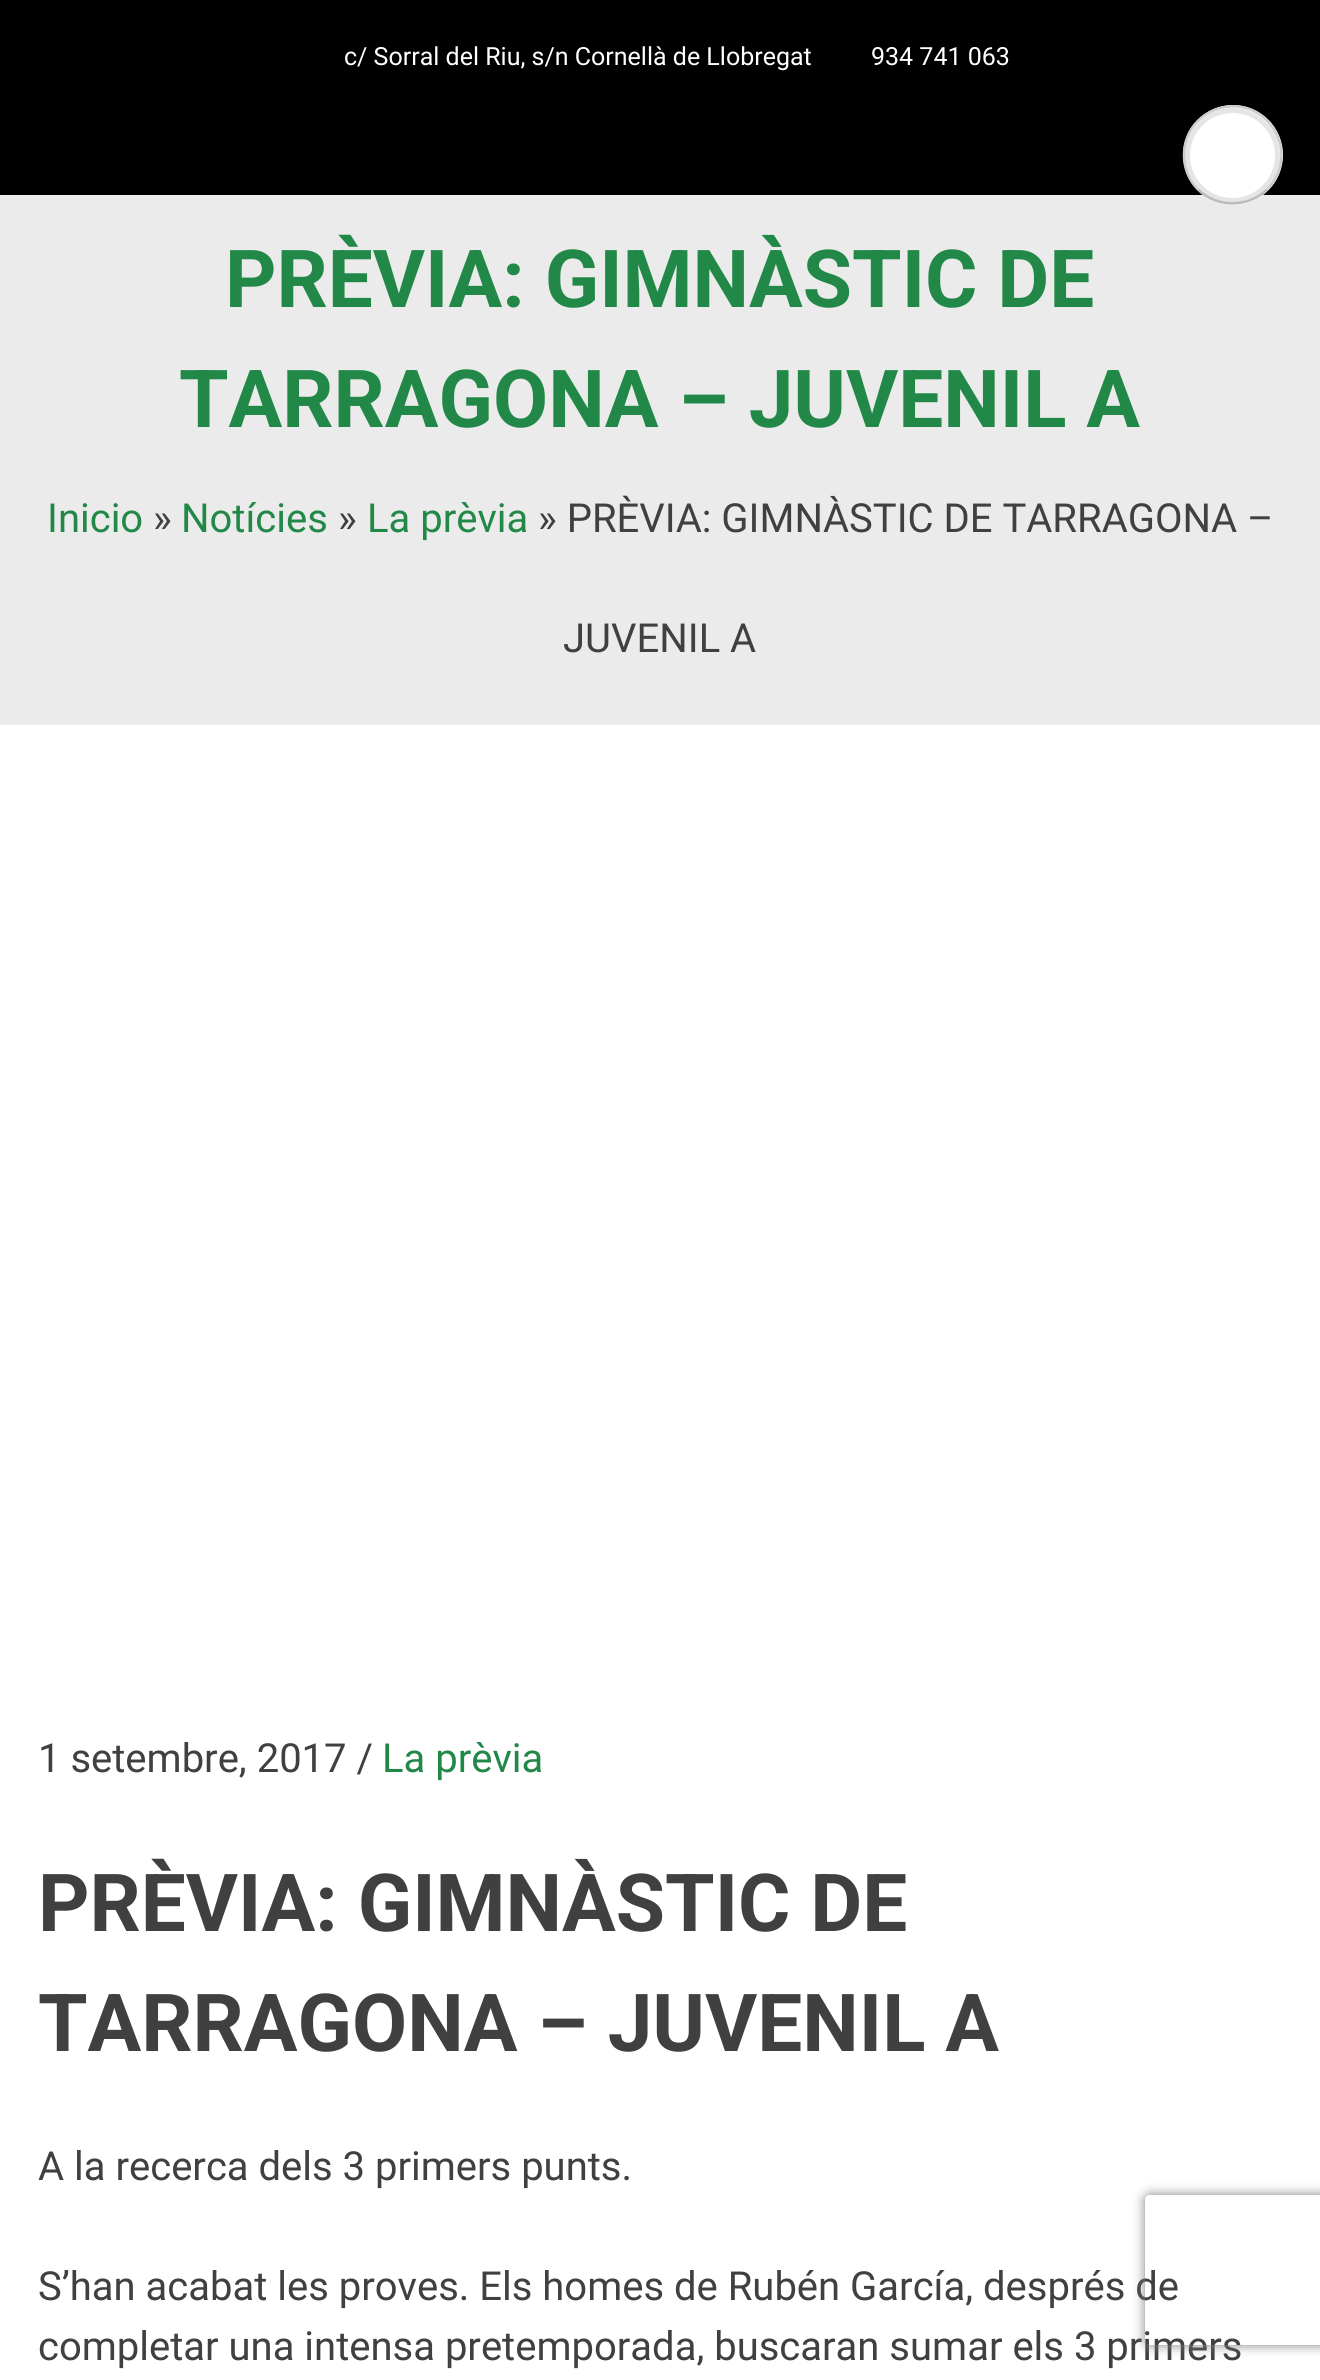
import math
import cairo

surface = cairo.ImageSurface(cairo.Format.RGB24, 1320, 2380)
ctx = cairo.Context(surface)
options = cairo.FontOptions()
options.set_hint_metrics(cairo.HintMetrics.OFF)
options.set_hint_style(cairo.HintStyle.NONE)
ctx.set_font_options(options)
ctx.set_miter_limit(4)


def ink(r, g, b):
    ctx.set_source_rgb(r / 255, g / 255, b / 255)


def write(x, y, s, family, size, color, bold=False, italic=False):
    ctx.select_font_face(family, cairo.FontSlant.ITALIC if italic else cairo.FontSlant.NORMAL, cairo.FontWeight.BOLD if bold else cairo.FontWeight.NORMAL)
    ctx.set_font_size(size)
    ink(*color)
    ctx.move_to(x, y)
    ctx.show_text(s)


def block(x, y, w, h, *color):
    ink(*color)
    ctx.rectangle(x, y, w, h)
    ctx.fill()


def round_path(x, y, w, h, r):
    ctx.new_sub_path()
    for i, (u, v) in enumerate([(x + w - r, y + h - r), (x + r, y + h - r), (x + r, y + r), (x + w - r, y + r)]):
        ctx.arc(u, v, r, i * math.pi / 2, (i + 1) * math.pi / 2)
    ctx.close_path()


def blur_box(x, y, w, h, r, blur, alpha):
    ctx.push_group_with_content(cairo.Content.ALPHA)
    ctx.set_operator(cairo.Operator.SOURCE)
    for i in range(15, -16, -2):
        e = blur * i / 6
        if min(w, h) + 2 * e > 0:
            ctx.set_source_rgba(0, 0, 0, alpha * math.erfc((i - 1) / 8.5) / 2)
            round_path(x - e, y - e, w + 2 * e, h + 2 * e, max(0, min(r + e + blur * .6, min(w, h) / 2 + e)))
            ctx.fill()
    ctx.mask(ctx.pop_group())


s1 = dict(family="Roboto", size=25, color=(255, 255, 255))
s2 = dict(family="Roboto", size=80, color=(34, 136, 72), bold=True)
s3 = dict(family="Roboto", size=40, color=(34, 136, 72))
s4 = dict(family="Roboto", size=40, color=(64, 64, 64))
s5 = dict(family="Roboto", size=80, color=(64, 64, 64), bold=True)

ink(255, 255, 255)
ctx.paint()
block(0, 0, 1320, 195, 0, 0, 0)
write(344, 65, "c/ Sorral del Riu, s/n Cornellà de Llobregat", **s1)
write(871, 65, "934 741 063", **s1)
block(0, 195, 1320, 530, 235, 235, 235)
ink(255, 255, 255)
ctx.new_path()
ctx.arc(1233, 155, 50, 0, 2 * math.pi)
ctx.fill()
ctx.arc(1232.5, 155.5, 45, 0, 2 * math.pi)
ink(229, 229, 229)
ctx.set_line_width(5)
ctx.stroke()
ctx.new_path()
ctx.move_to(1267, 189.5)
ctx.curve_to(1248, 208, 1217, 208, 1198, 189.5)
ink(187, 187, 187)
ctx.set_line_width(2.5)
ctx.stroke()
ctx.new_path()
ctx.move_to(1198, 189.5)
ctx.curve_to(1189, 180.5, 1184, 168, 1184, 155)
ctx.curve_to(1184, 112, 1236.5, 90, 1267, 120.5)
ctx.curve_to(1273.5, 127.5, 1278.5, 136, 1280.5, 145.5)
ctx.curve_to(1283.5, 161.5, 1278.5, 178, 1267, 189.5)
ink(204, 204, 204)
ctx.stroke()
write(225, 307, "PRÈVIA: GIMNÀSTIC DE", **s2)
write(179, 427, "TARRAGONA – JUVENIL A", **s2)
write(47, 532, "Inicio", **s3)
write(153, 532, "»", **s4)
write(181, 532, "Notícies", **s3)
write(338, 532, "»", **s4)
write(367, 532, "La prèvia", **s3)
write(538, 532, "» PRÈVIA: GIMNÀSTIC DE TARRAGONA –", **s4)
write(563, 652, "JUVENIL A", **s4)
write(38, 1772, "1 setembre, 2017 /", **s4)
write(382, 1772, "La prèvia", **s3)
write(38, 1931, "PRÈVIA: GIMNÀSTIC DE", **s5)
write(38, 2051, "TARRAGONA – JUVENIL A", **s5)
write(38, 2180, "A la recerca dels 3 primers punts.", **s4)
write(38, 2300, "S’han acabat les proves. Els homes de Rubén García, després de", **s4)
write(38, 2360, "completar una intensa pretemporada, buscaran sumar els 3 primers", **s4)
ctx.save()
ctx.set_fill_rule(cairo.FillRule.EVEN_ODD)
ctx.new_path()
ctx.move_to(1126, 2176)
ctx.line_to(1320, 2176)
ctx.line_to(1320, 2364)
ctx.line_to(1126, 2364)
ctx.close_path()
ctx.move_to(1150, 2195)
ctx.line_to(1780, 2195)
ctx.curve_to(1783, 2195, 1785, 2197, 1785, 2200)
ctx.line_to(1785, 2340)
ctx.curve_to(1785, 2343, 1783, 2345, 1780, 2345)
ctx.line_to(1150, 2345)
ctx.curve_to(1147, 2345, 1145, 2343, 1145, 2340)
ctx.line_to(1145, 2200)
ctx.curve_to(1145, 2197, 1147, 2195, 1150, 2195)
ctx.close_path()
ctx.clip()
ink(128, 128, 128)
blur_box(1145, 2195, 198, 150, 5, 6, 1)
ctx.restore()
surface.write_to_png("screenshot.png")
